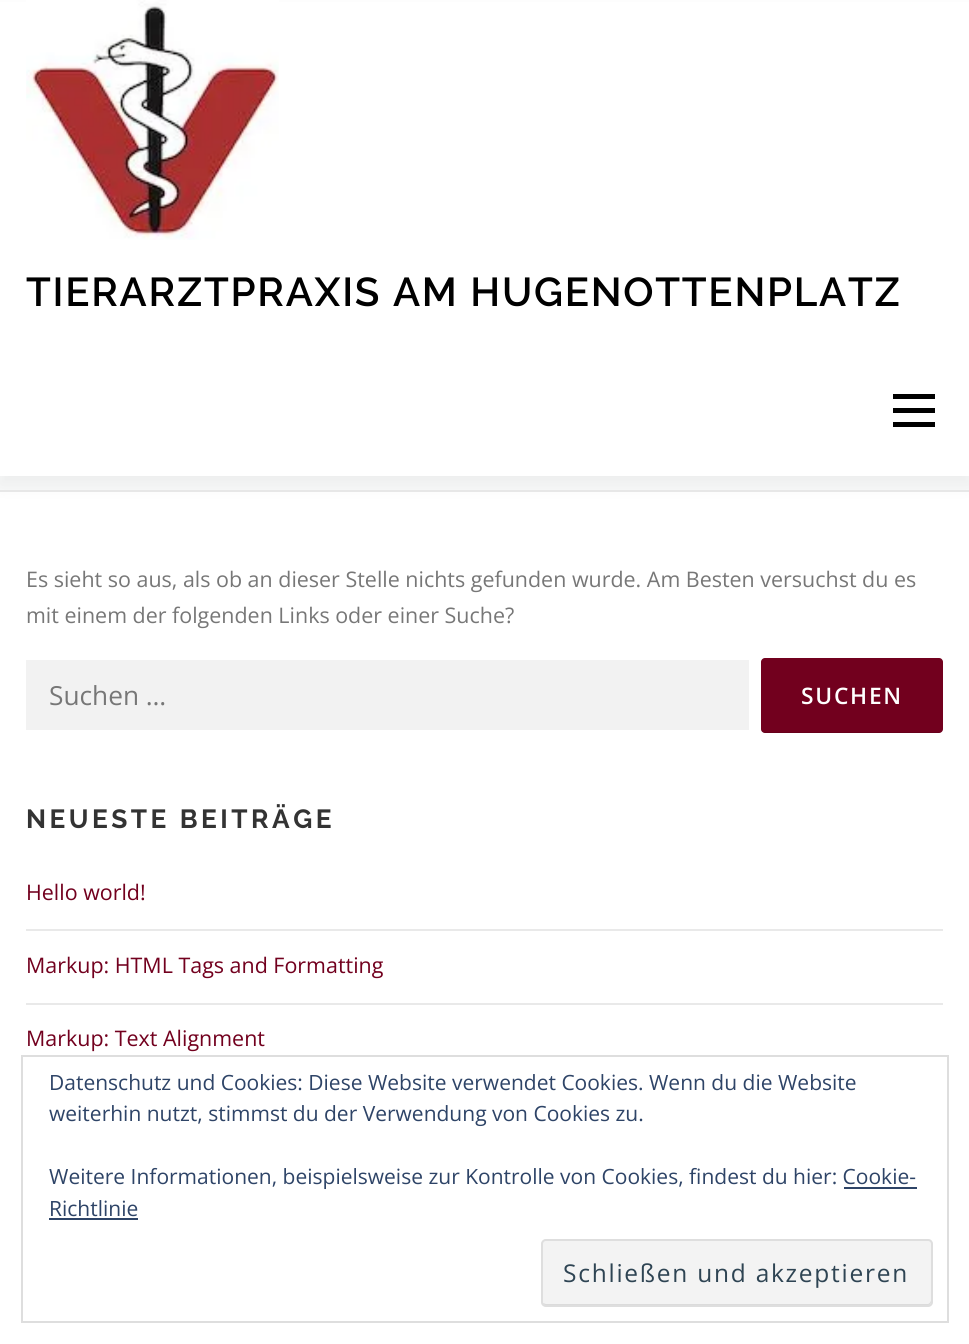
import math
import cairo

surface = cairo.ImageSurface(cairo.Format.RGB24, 969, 1344)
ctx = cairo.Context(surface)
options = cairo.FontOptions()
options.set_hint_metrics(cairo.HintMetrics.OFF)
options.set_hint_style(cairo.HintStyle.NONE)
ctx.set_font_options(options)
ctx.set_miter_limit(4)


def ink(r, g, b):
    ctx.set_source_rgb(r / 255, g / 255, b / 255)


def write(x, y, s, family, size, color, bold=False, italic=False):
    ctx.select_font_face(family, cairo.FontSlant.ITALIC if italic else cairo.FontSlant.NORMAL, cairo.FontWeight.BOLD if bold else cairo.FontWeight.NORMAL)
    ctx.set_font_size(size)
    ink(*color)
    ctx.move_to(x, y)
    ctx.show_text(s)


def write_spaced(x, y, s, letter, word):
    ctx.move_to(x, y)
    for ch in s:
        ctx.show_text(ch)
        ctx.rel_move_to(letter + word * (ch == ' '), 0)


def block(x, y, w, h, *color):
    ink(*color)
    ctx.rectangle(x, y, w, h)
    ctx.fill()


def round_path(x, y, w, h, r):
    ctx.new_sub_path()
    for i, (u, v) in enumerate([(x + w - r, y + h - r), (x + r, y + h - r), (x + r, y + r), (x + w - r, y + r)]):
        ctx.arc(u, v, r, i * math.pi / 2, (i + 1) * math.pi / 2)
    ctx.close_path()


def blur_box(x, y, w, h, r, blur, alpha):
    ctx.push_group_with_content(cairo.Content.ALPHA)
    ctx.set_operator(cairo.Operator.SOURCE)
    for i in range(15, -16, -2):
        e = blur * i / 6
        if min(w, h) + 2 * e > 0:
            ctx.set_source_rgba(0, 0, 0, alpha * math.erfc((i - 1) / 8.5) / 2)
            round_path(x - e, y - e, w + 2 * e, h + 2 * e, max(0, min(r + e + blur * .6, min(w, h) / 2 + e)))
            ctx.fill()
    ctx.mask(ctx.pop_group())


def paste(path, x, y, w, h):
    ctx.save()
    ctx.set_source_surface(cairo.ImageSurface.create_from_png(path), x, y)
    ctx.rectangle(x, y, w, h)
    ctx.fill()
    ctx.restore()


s1 = dict(family="Open Sans", size=21.45, color=(119, 119, 119))
s2 = dict(family="Open Sans", size=26.25, color=(119, 119, 119))
s3 = dict(family="Open Sans", size=21.45, color=(114, 0, 30))
s4 = dict(family="Open Sans", size=21, color=(46, 68, 103))

ink(255, 255, 255)
ctx.paint()
block(0, 476, 969, 14, 248, 249, 249)
block(0, 490, 969, 2, 233, 233, 233)
ink(50, 50, 50)
blur_box(0, 9, 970, 476, 0, 9, 0.06)
block(0, 2, 969, 474, 255, 255, 255)
paste("pic1.png", 26, 0, 253, 240)
ctx.select_font_face("Raleway SemiBold")
ctx.set_font_size(40.25)
ink(0, 0, 0)
write_spaced(26, 306, "TIERARZTPRAXIS AM HUGENOTTENPLATZ", 1.75, 0)
block(893, 408, 42, 5, 0, 0, 0)
block(893, 394, 42, 5, 0, 0, 0)
block(893, 422, 42, 5, 0, 0, 0)
write(26, 587, "Es sieht so aus, als ob an dieser Stelle nichts gefunden wurde. Am Besten versuchst du es", **s1)
write(26, 623, "mit einem der folgenden Links oder einer Suche?", **s1)
block(26, 660, 723, 70, 242, 242, 242)
write(49, 705, "Suchen …", **s2)
ink(114, 0, 30)
round_path(761, 658, 182, 75, 4)
ctx.fill()
ctx.set_source_rgba(0, 0, 0, 0.1)
ctx.new_path()
ctx.move_to(761, 728)
ctx.line_to(761, 729)
ctx.curve_to(761, 731, 763, 733, 765, 733)
ctx.line_to(939, 733)
ctx.curve_to(941, 733, 943, 731, 943, 729)
ctx.line_to(943, 728)
ctx.curve_to(943, 730, 942, 732, 940, 732)
ctx.line_to(765, 732)
ctx.curve_to(763, 732, 761, 730, 761, 728)
ctx.close_path()
ctx.fill()
ctx.select_font_face("Open Sans SemiBold")
ctx.set_font_size(22.75)
ink(255, 255, 255)
write_spaced(801, 704, "SUCHEN", 1.75, 0)
ctx.select_font_face("Raleway", cairo.FontSlant.NORMAL, cairo.FontWeight.BOLD)
ctx.set_font_size(26.25)
ink(51, 51, 51)
write_spaced(26, 828, "NEUESTE BEITRÄGE", 3.5, 0)
block(26, 929, 917, 2, 233, 233, 233)
write(26, 900, "Hello world!", **s3)
block(26, 1003, 917, 2, 233, 233, 233)
write(26, 973, "Markup: HTML Tags and Formatting", **s3)
write(26, 1046, "Markup: Text Alignment", **s3)
ctx.rectangle(22, 1056, 926, 266)
ink(222, 222, 222)
ctx.stroke()
write(49, 1090, "Datenschutz und Cookies: Diese Website verwendet Cookies. Wenn du die Website", **s4)
write(49, 1121, "weiterhin nutzt, stimmst du der Verwendung von Cookies zu.", **s4)
write(49, 1184, "Weitere Informationen, beispielsweise zur Kontrolle von Cookies, findest du hier: Cookie-", **s4)
write(49, 1216, "Richtlinie", **s4)
block(844, 1187, 73, 2, 46, 68, 103)
block(49, 1218, 89, 2, 46, 68, 103)
ink(243, 243, 243)
round_path(541, 1239, 392, 68, 5)
ctx.fill()
ink(219, 219, 219)
ctx.new_path()
ctx.move_to(543, 1303)
ctx.curve_to(543, 1304, 545, 1306, 547, 1306)
ctx.line_to(927, 1306)
ctx.curve_to(929, 1306, 931, 1304, 931, 1302)
ctx.line_to(931, 1300)
ctx.curve_to(931, 1302, 929, 1304, 928, 1304)
ctx.line_to(546, 1304)
ctx.curve_to(545, 1304, 544, 1303, 543, 1303)
ctx.close_path()
ctx.fill()
round_path(542, 1240, 390, 66, 4)
ink(222, 222, 222)
ctx.stroke()
ctx.set_font_size(24.5)
ink(46, 68, 83)
write_spaced(563, 1282, "Schließen und akzeptieren", 1.75, 0)
surface.write_to_png("screenshot.png")
